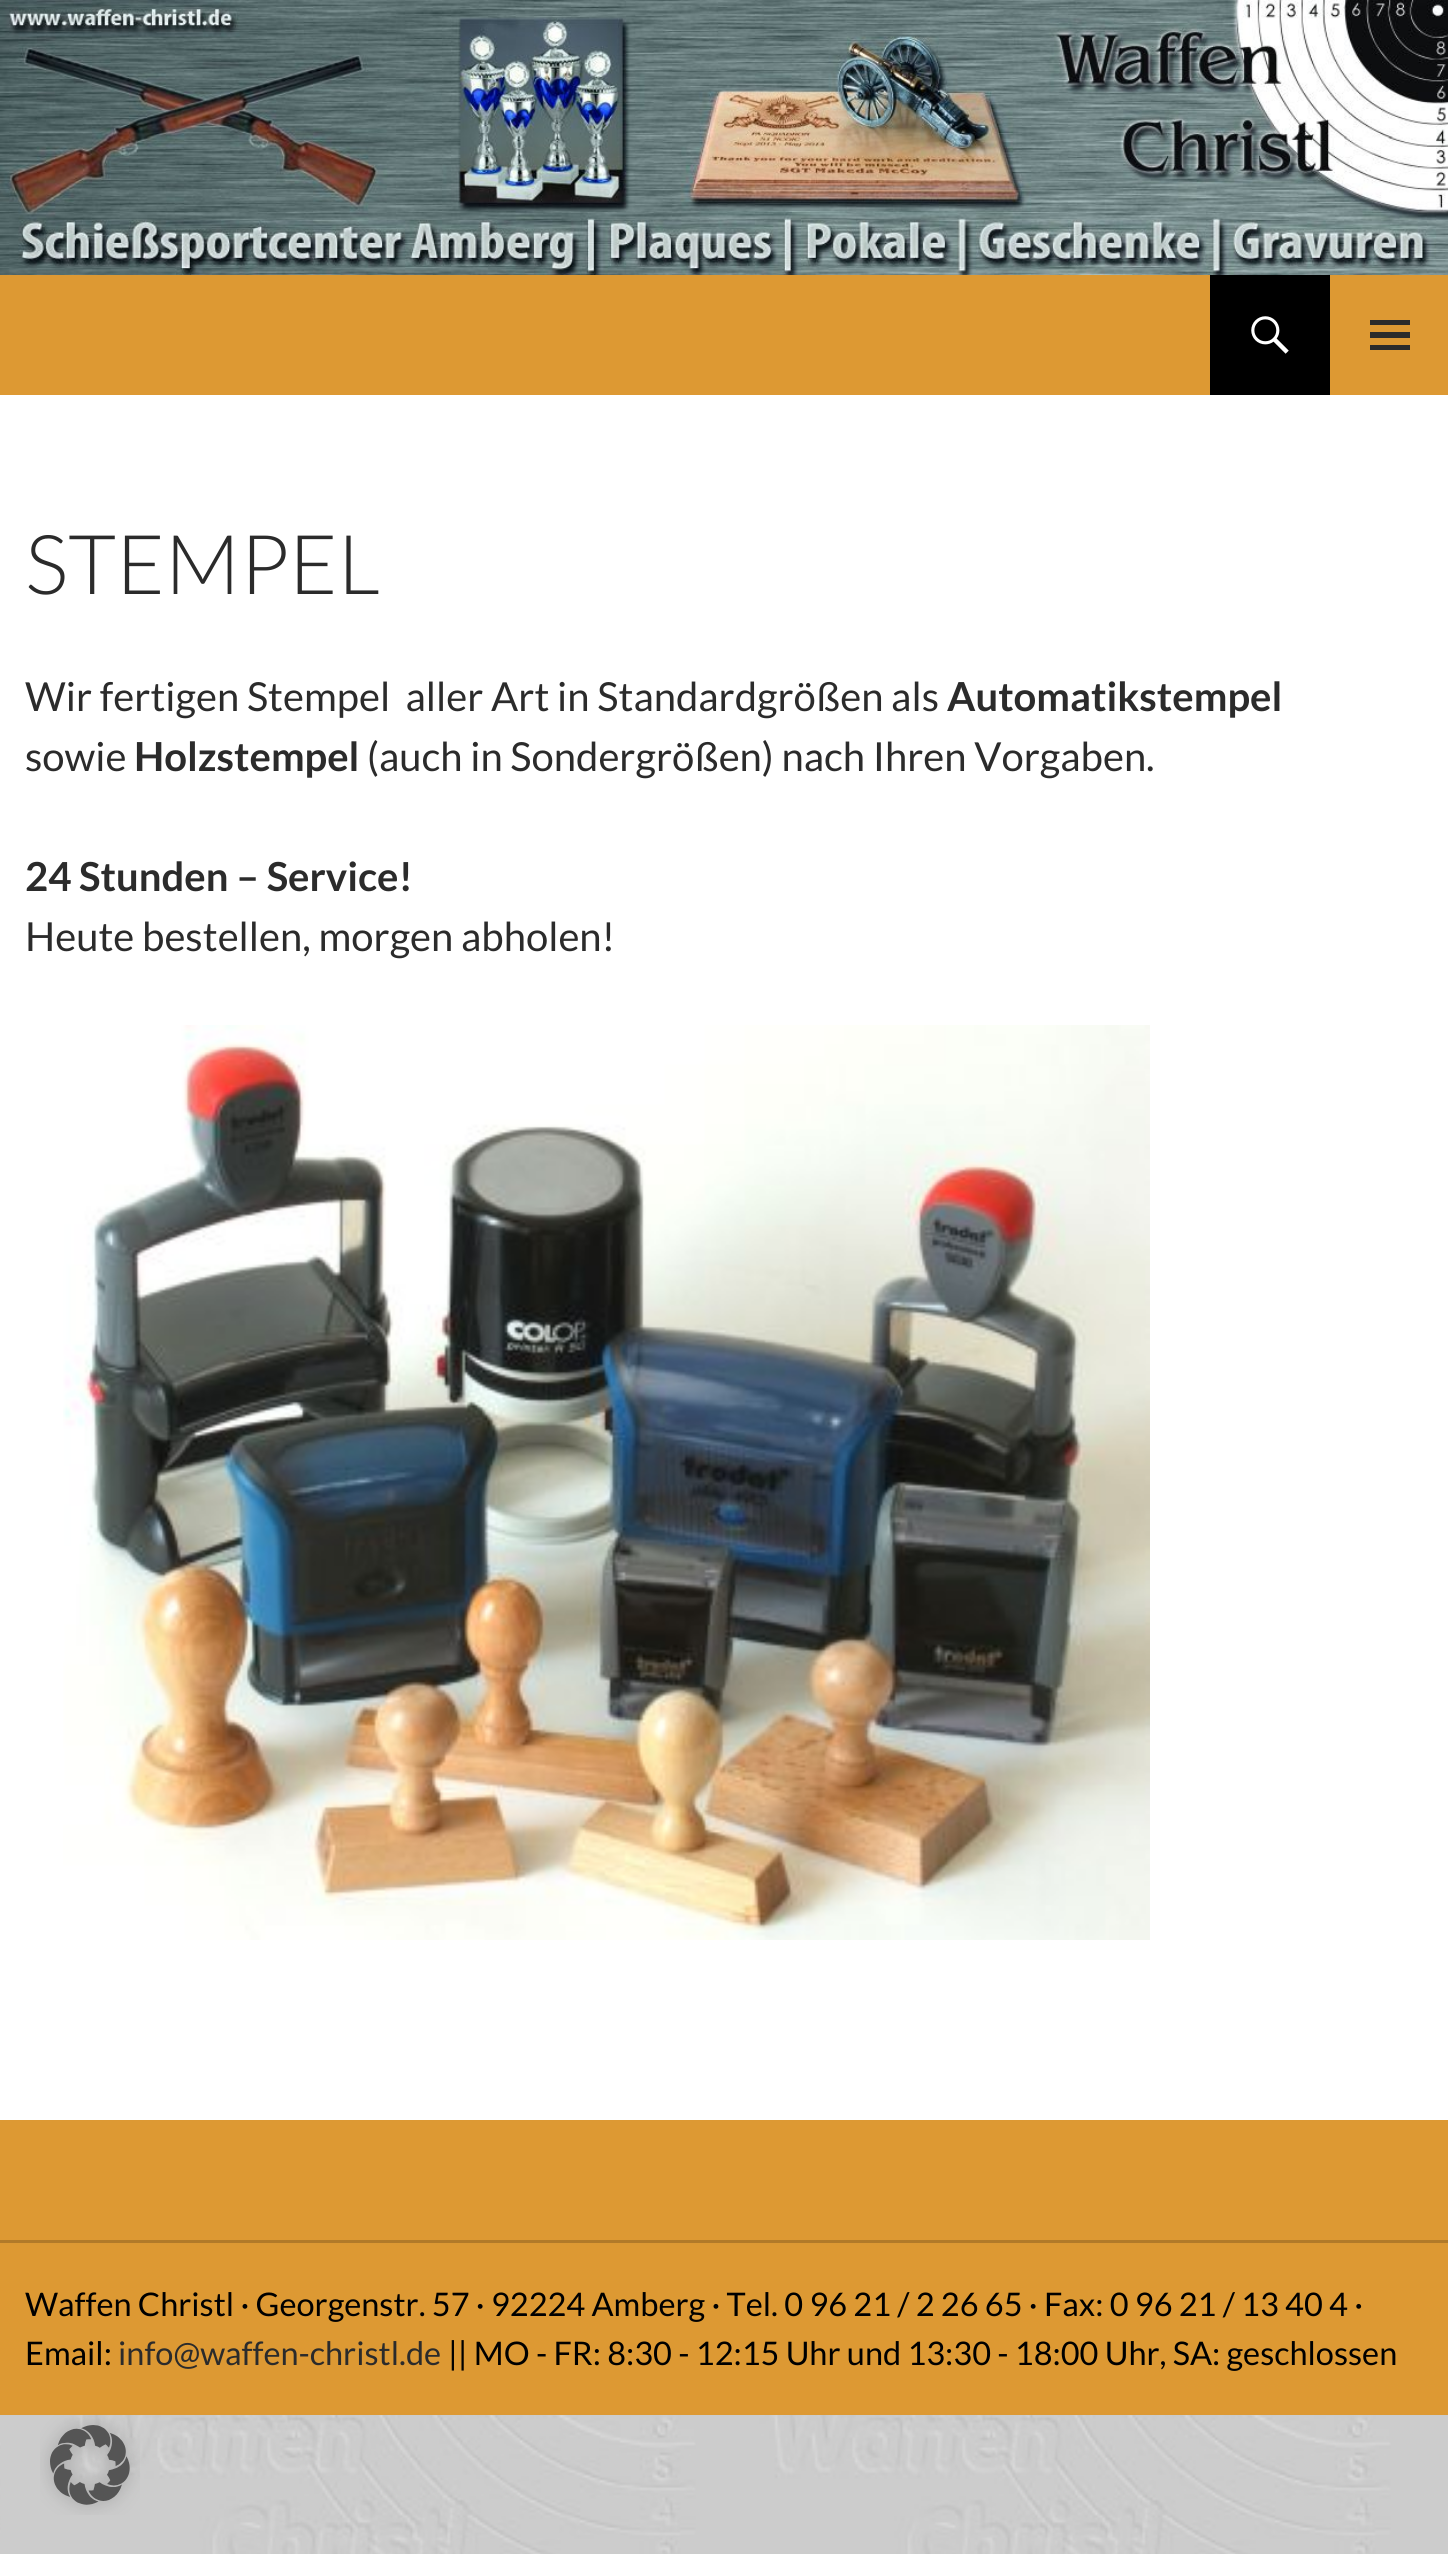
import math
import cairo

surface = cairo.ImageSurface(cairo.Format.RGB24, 1448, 2554)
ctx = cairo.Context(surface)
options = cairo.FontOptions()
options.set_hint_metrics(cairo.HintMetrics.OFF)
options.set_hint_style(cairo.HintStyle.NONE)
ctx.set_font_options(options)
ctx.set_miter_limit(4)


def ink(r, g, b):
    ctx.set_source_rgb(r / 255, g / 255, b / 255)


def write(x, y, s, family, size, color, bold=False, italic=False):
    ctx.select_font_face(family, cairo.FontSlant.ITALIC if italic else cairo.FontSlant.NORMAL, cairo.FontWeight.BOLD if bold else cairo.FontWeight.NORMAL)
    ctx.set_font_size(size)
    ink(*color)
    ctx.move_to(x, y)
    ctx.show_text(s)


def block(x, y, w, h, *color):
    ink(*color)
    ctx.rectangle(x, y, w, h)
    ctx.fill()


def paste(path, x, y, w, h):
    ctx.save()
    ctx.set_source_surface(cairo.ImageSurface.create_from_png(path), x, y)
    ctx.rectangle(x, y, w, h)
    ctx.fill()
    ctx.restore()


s1 = dict(family="Lato Light", size=82.5, color=(43, 43, 43))
s2 = dict(family="Lato", size=40, color=(43, 43, 43))
s3 = dict(family="Lato", size=40, color=(43, 43, 43), bold=True)
s4 = dict(family="Lato", size=32.5, color=(0, 0, 0))
s5 = dict(family="Lato", size=32.5, color=(43, 43, 43))

ink(255, 255, 255)
ctx.paint()
paste("pic1.png", 0, 2415, 1448, 139)
paste("pic2.png", 0, 0, 1448, 275)
block(0, 275, 1448, 120, 221, 153, 51)
block(1210, 275, 120, 120, 0, 0, 0)
paste("pic3.png", 1251, 316, 38, 38)
ink(43, 43, 43)
ctx.new_path()
ctx.move_to(1370, 350)
ctx.line_to(1370, 345)
ctx.line_to(1410, 345)
ctx.line_to(1410, 350)
ctx.close_path()
ctx.move_to(1370, 338)
ctx.line_to(1370, 332)
ctx.line_to(1410, 332)
ctx.line_to(1410, 338)
ctx.close_path()
ctx.move_to(1370, 325)
ctx.line_to(1370, 320)
ctx.line_to(1410, 320)
ctx.line_to(1410, 325)
ctx.close_path()
ctx.fill()
write(25, 594, "STEMPEL", **s1)
write(25, 711, "Wir fertigen Stempel  aller Art in Standardgrößen als", **s2)
write(947, 711, "Automatikstempel", **s3)
write(25, 771, "sowie", **s2)
write(134, 771, "Holzstempel", **s3)
write(367, 771, "(auch in Sondergrößen) nach Ihren Vorgaben.", **s2)
write(25, 891, "24 Stunden – Service!", **s3)
write(25, 951, "Heute bestellen, morgen abholen!", **s2)
paste("pic4.png", 63, 1025, 1087, 915)
block(0, 2120, 1448, 295, 221, 153, 51)
block(0, 2240, 1448, 3, 177, 122, 41)
write(25, 2316, "Waffen Christl · Georgenstr. 57 · 92224 Amberg · Tel. 0 96 21 / 2 26 65 · Fax: 0 96 21 / 13 40 4 ·", **s4)
write(25, 2365, "Email:", **s4)
write(118, 2365, "info@waffen-christl.de", **s5)
write(448, 2365, "|| MO - FR: 8:30 - 12:15 Uhr und 13:30 - 18:00 Uhr, SA: geschlossen", **s4)
paste("pic5.png", 40, 2415, 100, 100)
surface.write_to_png("screenshot.png")
